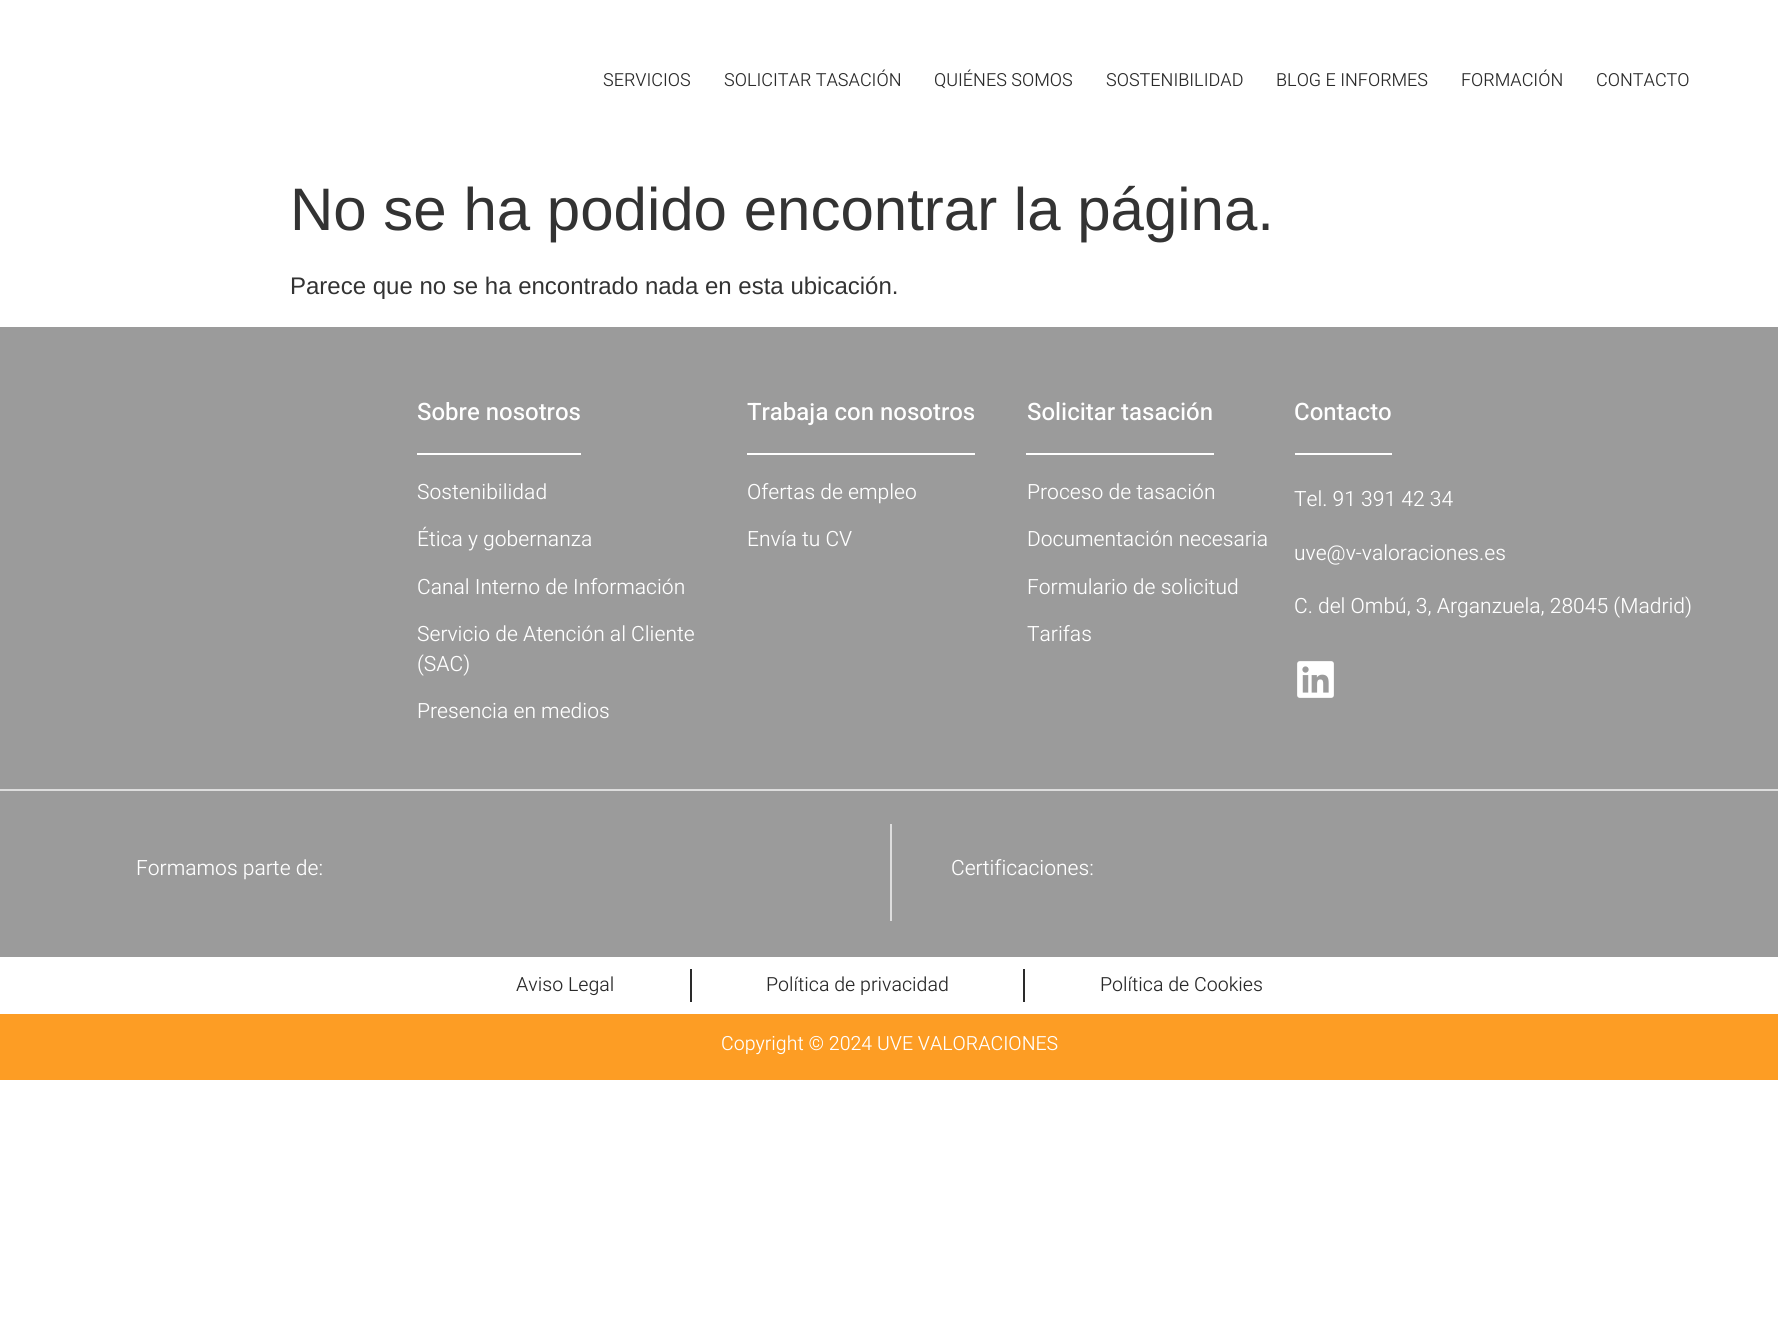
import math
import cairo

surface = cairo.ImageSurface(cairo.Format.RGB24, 1778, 1340)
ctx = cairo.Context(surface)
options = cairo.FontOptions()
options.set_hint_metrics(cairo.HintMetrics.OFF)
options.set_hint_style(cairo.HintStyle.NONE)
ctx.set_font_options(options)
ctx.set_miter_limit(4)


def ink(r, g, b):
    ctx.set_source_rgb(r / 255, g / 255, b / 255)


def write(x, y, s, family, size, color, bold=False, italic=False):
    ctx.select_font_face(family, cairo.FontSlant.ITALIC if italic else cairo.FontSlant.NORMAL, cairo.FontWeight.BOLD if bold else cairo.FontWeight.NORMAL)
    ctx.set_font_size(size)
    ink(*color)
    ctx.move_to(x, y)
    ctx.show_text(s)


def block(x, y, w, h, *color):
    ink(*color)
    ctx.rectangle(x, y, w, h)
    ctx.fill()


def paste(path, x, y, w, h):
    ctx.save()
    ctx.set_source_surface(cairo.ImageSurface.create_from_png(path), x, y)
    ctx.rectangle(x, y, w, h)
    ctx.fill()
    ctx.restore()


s1 = dict(family="Heebo Light", size=18, color=(42, 42, 42))
s2 = dict(family="Liberation Sans", size=60, color=(51, 51, 51))
s3 = dict(family="Liberation Sans", size=24, color=(51, 51, 51))
s4 = dict(family="Heebo Medium", size=24, color=(255, 255, 255))
s5 = dict(family="Heebo Light", size=21, color=(255, 255, 255))
s6 = dict(family="Heebo Light", size=19.5, color=(42, 42, 42))
s7 = dict(family="Heebo Light", size=19.5, color=(255, 255, 255))

ink(255, 255, 255)
ctx.paint()
write(603, 86, "SERVICIOS", **s1)
write(724, 86, "SOLICITAR TASACIÓN", **s1)
write(934, 86, "QUIÉNES SOMOS", **s1)
write(1106, 86, "SOSTENIBILIDAD", **s1)
write(1276, 86, "BLOG E INFORMES", **s1)
write(1461, 86, "FORMACIÓN", **s1)
write(1596, 86, "CONTACTO", **s1)
write(290, 230, "No se ha podido encontrar la página.", **s2)
write(290, 294, "Parece que no se ha encontrado nada en esta ubicación.", **s3)
block(0, 327, 1778, 462, 155, 155, 155)
block(417, 453, 164, 2, 255, 255, 255)
write(417, 420, "Sobre nosotros", **s4)
write(417, 499, "Sostenibilidad", **s5)
write(417, 546, "Ética y gobernanza", **s5)
write(417, 594, "Canal Interno de Información", **s5)
write(417, 641, "Servicio de Atención al Cliente", **s5)
write(417, 671, "(SAC)", **s5)
write(417, 718, "Presencia en medios", **s5)
block(747, 453, 228, 2, 255, 255, 255)
write(747, 420, "Trabaja con nosotros", **s4)
write(747, 499, "Ofertas de empleo", **s5)
write(747, 546, "Envía tu CV", **s5)
block(1026, 453, 188, 2, 255, 255, 255)
write(1027, 420, "Solicitar tasación", **s4)
write(1027, 499, "Proceso de tasación", **s5)
write(1027, 546, "Documentación necesaria", **s5)
write(1027, 594, "Formulario de solicitud", **s5)
write(1027, 641, "Tarifas", **s5)
block(1295, 453, 97, 2, 255, 255, 255)
write(1294, 420, "Contacto", **s4)
write(1294, 506, "Tel. 91 391 42 34", **s5)
write(1294, 560, "uve@v-valoraciones.es", **s5)
write(1294, 613, "C. del Ombú, 3, Arganzuela, 28045 (Madrid)", **s5)
paste("pic1.png", 1297, 661, 37, 37)
block(0, 791, 1778, 166, 155, 155, 155)
block(0, 789, 1778, 2, 221, 221, 221)
write(136, 875, "Formamos parte de:", **s5)
block(890, 824, 2, 97, 221, 221, 221)
write(951, 875, "Certificaciones:", **s5)
write(516, 991, "Aviso Legal", **s6)
block(690, 969, 2, 33, 42, 42, 42)
write(766, 991, "Política de privacidad", **s6)
block(1023, 969, 2, 33, 42, 42, 42)
write(1100, 991, "Política de Cookies", **s6)
block(0, 1014, 1778, 66, 253, 157, 36)
write(721, 1050, "Copyright © 2024 UVE VALORACIONES", **s7)
surface.write_to_png("screenshot.png")
